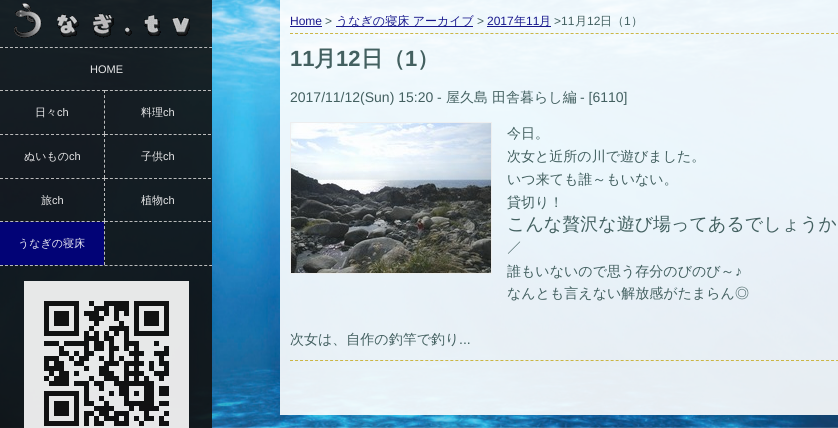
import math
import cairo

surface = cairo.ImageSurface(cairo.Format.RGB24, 838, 428)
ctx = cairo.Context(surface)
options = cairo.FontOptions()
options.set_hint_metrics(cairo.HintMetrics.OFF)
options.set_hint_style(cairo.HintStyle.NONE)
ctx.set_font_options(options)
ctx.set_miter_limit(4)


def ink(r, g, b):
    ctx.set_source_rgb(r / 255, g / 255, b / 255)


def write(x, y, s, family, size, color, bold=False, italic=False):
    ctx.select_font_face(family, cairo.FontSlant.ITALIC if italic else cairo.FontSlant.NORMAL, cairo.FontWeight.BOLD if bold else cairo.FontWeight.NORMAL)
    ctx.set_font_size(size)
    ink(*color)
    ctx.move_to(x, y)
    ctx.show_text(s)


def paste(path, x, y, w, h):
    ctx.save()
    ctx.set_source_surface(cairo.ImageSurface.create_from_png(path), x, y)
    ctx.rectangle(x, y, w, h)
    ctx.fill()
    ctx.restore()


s1 = dict(family="Liberation Sans", size=11, color=(232, 232, 233))
s2 = dict(family="WenQuanYi Zen Hei Medium", size=11, color=(232, 232, 233))
s3 = dict(family="WenQuanYi Zen Hei Medium", size=11, color=(230, 230, 241))
s4 = dict(family="Liberation Sans", size=12, color=(25, 25, 141))
s5 = dict(family="Liberation Sans", size=12, color=(67, 96, 96))
s6 = dict(family="WenQuanYi Zen Hei Medium", size=12, color=(25, 25, 141))
s7 = dict(family="WenQuanYi Zen Hei Medium", size=12, color=(67, 96, 96))
s8 = dict(family="Liberation Sans", size=22, color=(67, 96, 96), bold=True)
s9 = dict(family="WenQuanYi Zen Hei", size=22, color=(67, 96, 96), bold=True)
s10 = dict(family="Liberation Sans", size=14, color=(67, 96, 96))
s11 = dict(family="WenQuanYi Zen Hei Medium", size=14, color=(67, 96, 96))
s12 = dict(family="WenQuanYi Zen Hei Medium", size=18, color=(67, 96, 96))
s13 = dict(family="IPAGothic", size=14, color=(67, 96, 96))

ink(255, 255, 255)
ctx.paint()
paste("pic1.png", 0, 0, 838, 428)
ctx.set_source_rgba(0.067, 0.067, 0.067, 0.9)
ctx.rectangle(0, 0, 212, 428)
ctx.fill()
paste("pic2.png", 14, 3, 176, 35)
ctx.new_path()
ctx.move_to(0, 47.5)
ctx.line_to(212, 47.5)
ctx.set_source_rgba(0.8, 0.8, 0.8, 0.9)
ctx.set_line_width(1)
ctx.set_dash([3, 1.98])
ctx.stroke()
write(90, 73, "HOME", **s1)
ctx.new_path()
ctx.move_to(0, 90.5)
ctx.line_to(105, 90.5)
ink(186, 187, 187)
ctx.set_dash([3, 2.1])
ctx.stroke()
ctx.new_path()
ctx.move_to(104.5, 90)
ctx.line_to(104.5, 134)
ctx.set_source_rgba(0.8, 0.8, 0.8, 0.9)
ctx.set_dash([3, 2.12])
ctx.stroke()
write(35, 116, "日々", **s2)
write(57, 116, "ch", **s1)
ctx.new_path()
ctx.move_to(105, 90.5)
ctx.line_to(211, 90.5)
ctx.set_source_rgba(0.8, 0.8, 0.8, 0.9)
ctx.set_dash([3, 1.9])
ctx.stroke()
write(141, 116, "料理", **s2)
write(163, 116, "ch", **s1)
ctx.new_path()
ctx.move_to(0, 134.5)
ctx.line_to(105, 134.5)
ink(186, 186, 187)
ctx.set_dash([3, 2.1])
ctx.stroke()
ctx.new_path()
ctx.move_to(104.5, 134)
ctx.line_to(104.5, 178)
ctx.set_source_rgba(0.8, 0.8, 0.8, 0.9)
ctx.set_dash([3, 2.12])
ctx.stroke()
write(24, 160, "ぬいもの", **s2)
write(69, 160, "ch", **s1)
ctx.new_path()
ctx.move_to(105, 134.5)
ctx.line_to(211, 134.5)
ctx.set_source_rgba(0.8, 0.8, 0.8, 0.9)
ctx.set_dash([3, 1.9])
ctx.stroke()
write(141, 160, "子供", **s2)
write(163, 160, "ch", **s1)
ctx.new_path()
ctx.move_to(0, 178.5)
ctx.line_to(105, 178.5)
ink(186, 186, 187)
ctx.set_dash([3, 2.1])
ctx.stroke()
ctx.new_path()
ctx.move_to(104.5, 178)
ctx.line_to(104.5, 221)
ctx.set_source_rgba(0.8, 0.8, 0.8, 0.9)
ctx.set_dash([3, 2])
ctx.stroke()
write(41, 204, "旅", **s2)
write(52, 204, "ch", **s1)
ctx.new_path()
ctx.move_to(105, 178.5)
ctx.line_to(211, 178.5)
ctx.set_source_rgba(0.8, 0.8, 0.8, 0.9)
ctx.set_dash([3, 1.9])
ctx.stroke()
write(141, 204, "植物", **s2)
write(163, 204, "ch", **s1)
ctx.new_path()
ctx.move_to(105, 221.5)
ctx.line_to(211, 221.5)
ink(185, 187, 187)
ctx.stroke()
ctx.new_path()
ctx.move_to(0, 221.5)
ctx.line_to(105, 221.5)
ctx.set_source_rgba(0.8, 0.8, 0.8, 0.9)
ctx.set_dash([3, 2.1])
ctx.stroke()
ctx.new_path()
ctx.move_to(104.5, 221)
ctx.line_to(104.5, 265)
ctx.set_dash([3, 2.12])
ctx.stroke()
ctx.set_source_rgba(0, 0, 0.502, 0.9)
ctx.rectangle(0, 222, 104, 43)
ctx.fill()
write(18, 247, "うなぎの寝床", **s3)
ctx.new_path()
ctx.move_to(0, 265.5)
ctx.line_to(212, 265.5)
ink(185, 186, 187)
ctx.set_dash([3, 1.98])
ctx.stroke()
paste("pic3.png", 24, 281, 165, 147)
ctx.set_source_rgba(1, 1, 1, 0.9)
ctx.rectangle(280, 0, 558, 415)
ctx.fill()
ctx.new_path()
ctx.move_to(290, 33.5)
ctx.line_to(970, 33.5)
ctx.set_source_rgba(0.784, 0.69, 0.196, 0.9)
ctx.set_dash([3, 2.01])
ctx.stroke()
write(290, 25, "Home", **s4)
ctx.set_source_rgba(0, 0, 0.502, 0.9)
ctx.rectangle(290, 26, 32, 1)
ctx.fill()
write(325, 25, ">", **s5)
ctx.set_source_rgba(0, 0, 0.502, 0.9)
ctx.rectangle(336, 26, 137, 1)
ctx.fill()
write(336, 25, "うなぎの寝床 アーカイブ", **s6)
write(477, 25, ">", **s5)
write(487, 25, "2017", **s4)
ctx.set_source_rgba(0, 0, 0.502, 0.9)
ctx.rectangle(487, 26, 64, 1)
ctx.fill()
write(514, 25, "年", **s6)
write(526, 25, "11", **s4)
write(539, 25, "月", **s6)
write(554, 25, ">11", **s5)
write(575, 25, "月", **s7)
write(587, 25, "12", **s5)
write(600, 25, "日（", **s7)
write(624, 25, "1", **s5)
write(631, 25, "）", **s7)
write(290, 66, "11", **s8)
write(314, 66, "月", **s9)
write(336, 66, "12", **s8)
write(361, 66, "日（", **s9)
write(405, 66, "1", **s8)
write(417, 66, "）", **s9)
write(290, 102, "2017/11/12(Sun) 15:20 -", **s10)
write(446, 102, "屋久島", **s11)
write(492, 102, "田舎暮らし編", **s11)
write(580, 102, "- [6110]", **s10)
ctx.rectangle(290.5, 122.5, 201, 151)
ctx.set_source_rgba(0.933, 0.933, 0.933, 0.9)
ctx.set_dash([])
ctx.stroke()
paste("pic4.png", 291, 123, 200, 150)
write(507, 138, "今日。", **s11)
write(507, 161, "次女と近所の川で遊びました。", **s11)
write(507, 184, "いつ来ても誰～もいない。", **s11)
write(507, 207, "貸切り！", **s11)
write(507, 230, "こんな贅沢な遊び場ってあるでしょうか", **s12)
write(507, 253, "／", **s13)
write(507, 276, "誰もいないので思う存分のびのび～", **s11)
write(735, 276, "♪", **s10)
write(507, 298, "なんとも言えない解放感がたまらん◎", **s11)
write(290, 344, "次女は、自作の釣竿で釣り", **s11)
write(459, 344, "...", **s10)
ctx.new_path()
ctx.move_to(290, 360.5)
ctx.line_to(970, 360.5)
ctx.set_source_rgba(0.784, 0.69, 0.196, 0.9)
ctx.set_dash([3, 2.01])
ctx.stroke()
surface.write_to_png("screenshot.png")
